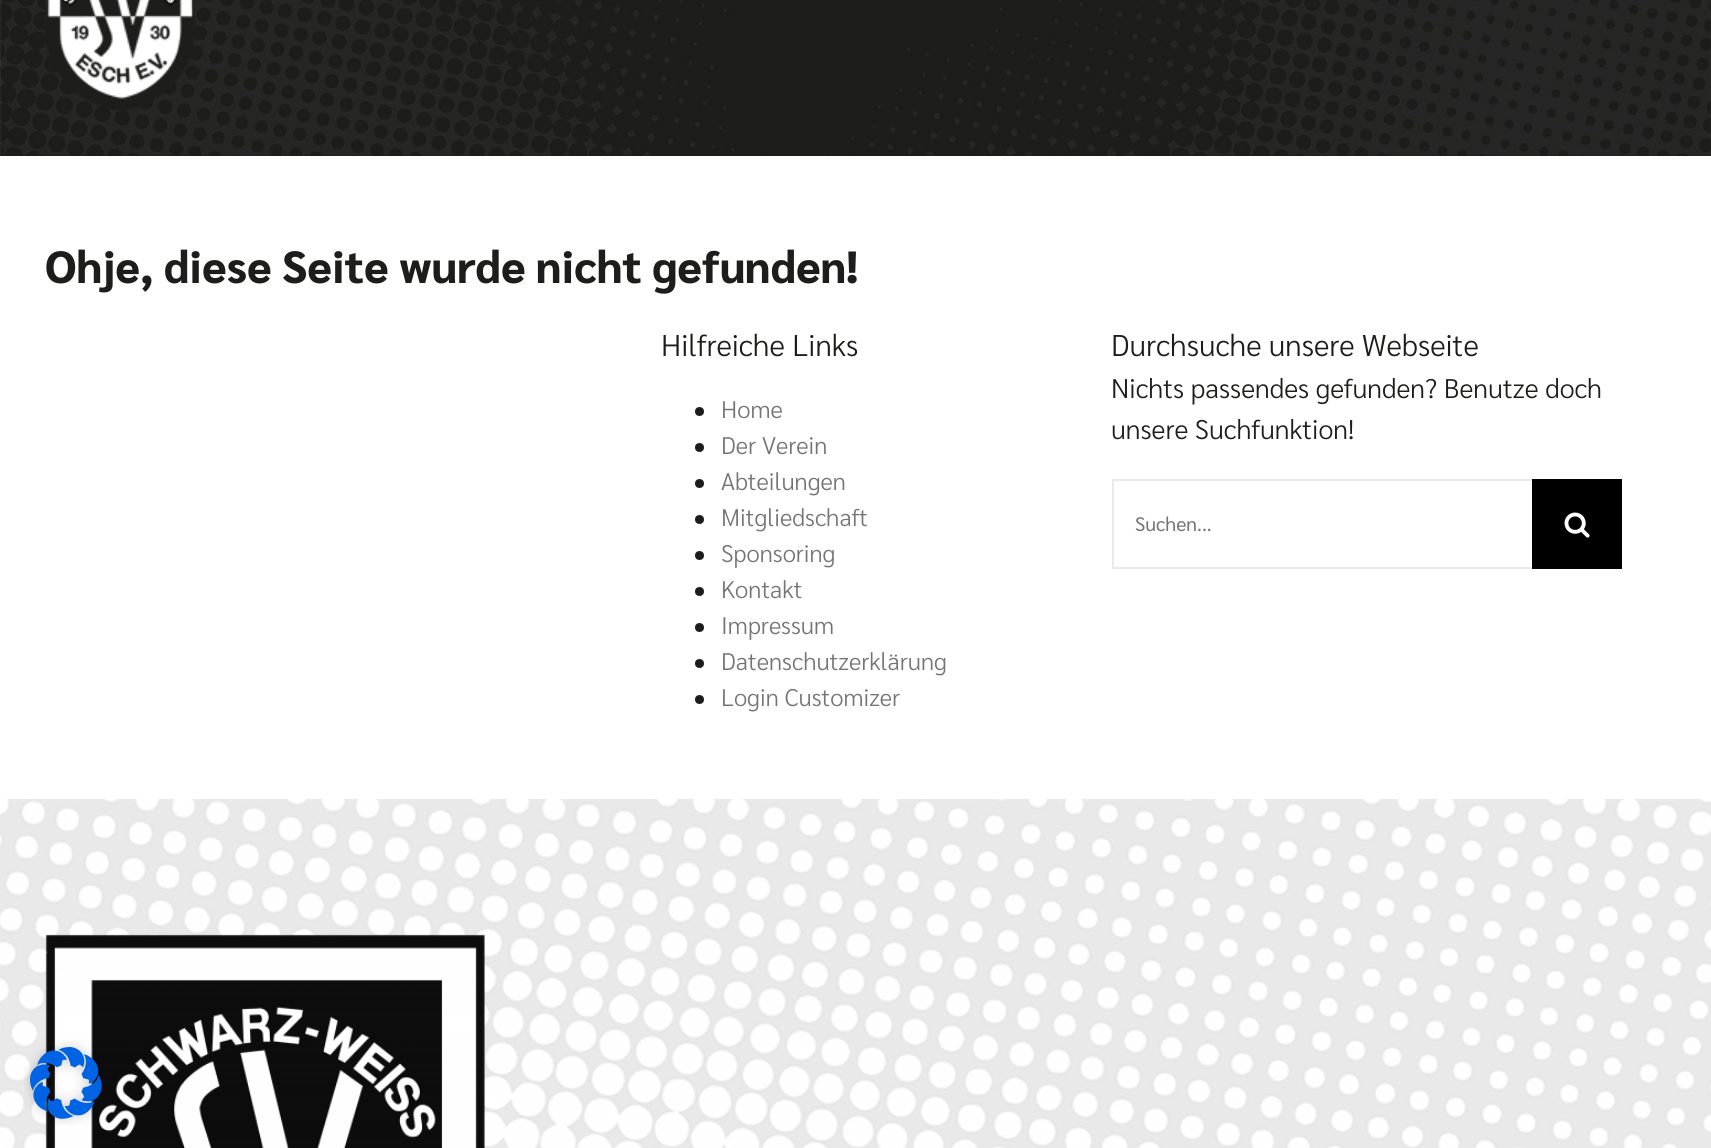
import math
import cairo

surface = cairo.ImageSurface(cairo.Format.RGB24, 1711, 1148)
ctx = cairo.Context(surface)
options = cairo.FontOptions()
options.set_hint_metrics(cairo.HintMetrics.OFF)
options.set_hint_style(cairo.HintStyle.NONE)
ctx.set_font_options(options)
ctx.set_miter_limit(4)


def ink(r, g, b):
    ctx.set_source_rgb(r / 255, g / 255, b / 255)


def write(x, y, s, family, size, color, bold=False, italic=False):
    ctx.select_font_face(family, cairo.FontSlant.ITALIC if italic else cairo.FontSlant.NORMAL, cairo.FontWeight.BOLD if bold else cairo.FontWeight.NORMAL)
    ctx.set_font_size(size)
    ink(*color)
    ctx.move_to(x, y)
    ctx.show_text(s)


def block(x, y, w, h, *color):
    ink(*color)
    ctx.rectangle(x, y, w, h)
    ctx.fill()


def paste(path, x, y, w, h):
    ctx.save()
    ctx.set_source_surface(cairo.ImageSurface.create_from_png(path), x, y)
    ctx.rectangle(x, y, w, h)
    ctx.fill()
    ctx.restore()


s1 = dict(family="Sarabun ExtraBold", size=45, color=(29, 29, 27))
s2 = dict(family="Sarabun Light", size=30, color=(29, 29, 27))
s3 = dict(family="Sarabun Light", size=24, color=(116, 116, 116))
s4 = dict(family="Sarabun Light", size=27, color=(29, 29, 27))
s5 = dict(family="Sarabun", size=19.5, color=(116, 116, 116))

ink(255, 255, 255)
ctx.paint()
block(0, 155, 1711, 1, 29, 29, 27)
paste("pic1.png", 0, 0, 1711, 156)
paste("pic2.png", 45, 0, 150, 110)
write(45, 283, "Ohje, diese Seite wurde nicht gefunden!", **s1)
write(661, 356, "Hilfreiche Links", **s2)
ctx.new_path()
ctx.arc(699.5, 411.5, 4.5, 0, 2 * math.pi)
ctx.fill()
write(721, 418, "Home", **s3)
ink(29, 29, 27)
ctx.new_path()
ctx.arc(699.5, 447.5, 4.5, 0, 2 * math.pi)
ctx.fill()
write(721, 454, "Der Verein", **s3)
ink(29, 29, 27)
ctx.new_path()
ctx.arc(699.5, 483.5, 4.5, 0, 2 * math.pi)
ctx.fill()
write(721, 490, "Abteilungen", **s3)
ink(29, 29, 27)
ctx.new_path()
ctx.arc(699.5, 519.5, 4.5, 0, 2 * math.pi)
ctx.fill()
write(721, 526, "Mitgliedschaft", **s3)
ink(29, 29, 27)
ctx.new_path()
ctx.arc(699.5, 555.5, 4.5, 0, 2 * math.pi)
ctx.fill()
write(721, 562, "Sponsoring", **s3)
ink(29, 29, 27)
ctx.new_path()
ctx.arc(699.5, 591.5, 4.5, 0, 2 * math.pi)
ctx.fill()
write(721, 598, "Kontakt", **s3)
ink(29, 29, 27)
ctx.new_path()
ctx.arc(699.5, 627.5, 4.5, 0, 2 * math.pi)
ctx.fill()
write(721, 634, "Impressum", **s3)
ink(29, 29, 27)
ctx.new_path()
ctx.arc(699.5, 663.5, 4.5, 0, 2 * math.pi)
ctx.fill()
write(721, 670, "Datenschutzerklärung", **s3)
ink(29, 29, 27)
ctx.new_path()
ctx.arc(699.5, 699.5, 4.5, 0, 2 * math.pi)
ctx.fill()
write(721, 706, "Login Customizer", **s3)
write(1111, 356, "Durchsuche unsere Webseite", **s2)
write(1111, 398, "Nichts passendes gefunden? Benutze doch", **s4)
write(1111, 439, "unsere Suchfunktion!", **s4)
block(1112, 479, 420, 2, 235, 234, 234)
block(1112, 567, 420, 2, 235, 234, 234)
block(1112, 479, 2, 90, 235, 234, 234)
write(1135, 531, "Suchen...", **s5)
block(1532, 479, 90, 90, 0, 0, 0)
paste("pic3.png", 1564, 512, 26, 26)
paste("pic4.png", 0, 799, 1711, 349)
paste("pic5.png", 45, 934, 440, 214)
paste("pic6.png", 24, 1041, 78, 84)
surface.write_to_png("screenshot.png")
